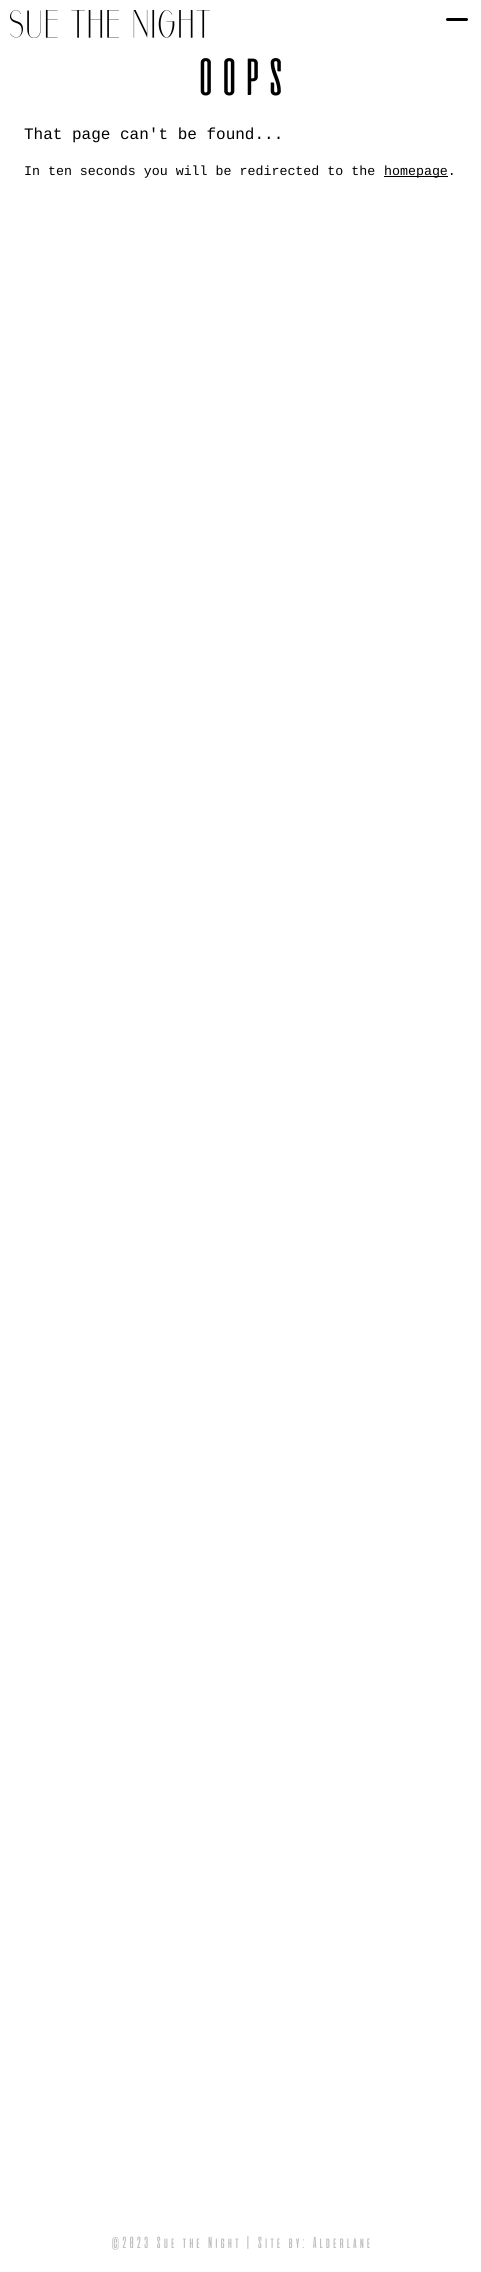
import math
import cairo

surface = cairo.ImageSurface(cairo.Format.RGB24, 481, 2272)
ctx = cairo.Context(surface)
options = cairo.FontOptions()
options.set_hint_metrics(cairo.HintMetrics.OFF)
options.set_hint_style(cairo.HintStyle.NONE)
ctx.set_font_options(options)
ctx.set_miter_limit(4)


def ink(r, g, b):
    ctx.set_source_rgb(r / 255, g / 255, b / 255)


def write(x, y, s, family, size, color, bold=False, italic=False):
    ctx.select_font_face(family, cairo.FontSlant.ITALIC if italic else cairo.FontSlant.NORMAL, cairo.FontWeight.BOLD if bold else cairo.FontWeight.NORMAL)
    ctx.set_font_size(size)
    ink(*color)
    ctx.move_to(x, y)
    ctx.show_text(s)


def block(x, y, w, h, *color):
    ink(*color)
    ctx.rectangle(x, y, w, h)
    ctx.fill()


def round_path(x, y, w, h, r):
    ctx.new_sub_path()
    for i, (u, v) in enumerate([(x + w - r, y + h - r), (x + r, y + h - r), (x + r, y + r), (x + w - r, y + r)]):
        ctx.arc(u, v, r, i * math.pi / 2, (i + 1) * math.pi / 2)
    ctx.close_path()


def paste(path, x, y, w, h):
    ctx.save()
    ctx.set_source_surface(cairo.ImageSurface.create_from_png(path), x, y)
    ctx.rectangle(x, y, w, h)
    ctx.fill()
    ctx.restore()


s1 = dict(family="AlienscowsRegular", size=52, color=(0, 0, 0))
s2 = dict(family="Liberation Mono", size=16, color=(0, 0, 0))
s3 = dict(family="Liberation Mono", size=13.3, color=(0, 0, 0))
s4 = dict(family="AlienscowsRegular", size=16, color=(188, 188, 188))

ink(255, 255, 255)
ctx.paint()
ink(0, 0, 0)
round_path(446, 18, 22, 3, 1.5)
ctx.fill()
paste("pic1.png", 10, 10, 200, 28)
write(194, 95, "OOPS", **s1)
write(24, 139, "That page can't be found...", **s2)
write(24, 175, "In ten seconds you will be redirected to the", **s3)
block(384, 176, 64, 1, 0, 0, 0)
write(384, 175, "homepage.", **s3)
write(110, 2248, "©2023 Sue the Night | Site by: Alderlane", **s4)
surface.write_to_png("screenshot.png")
